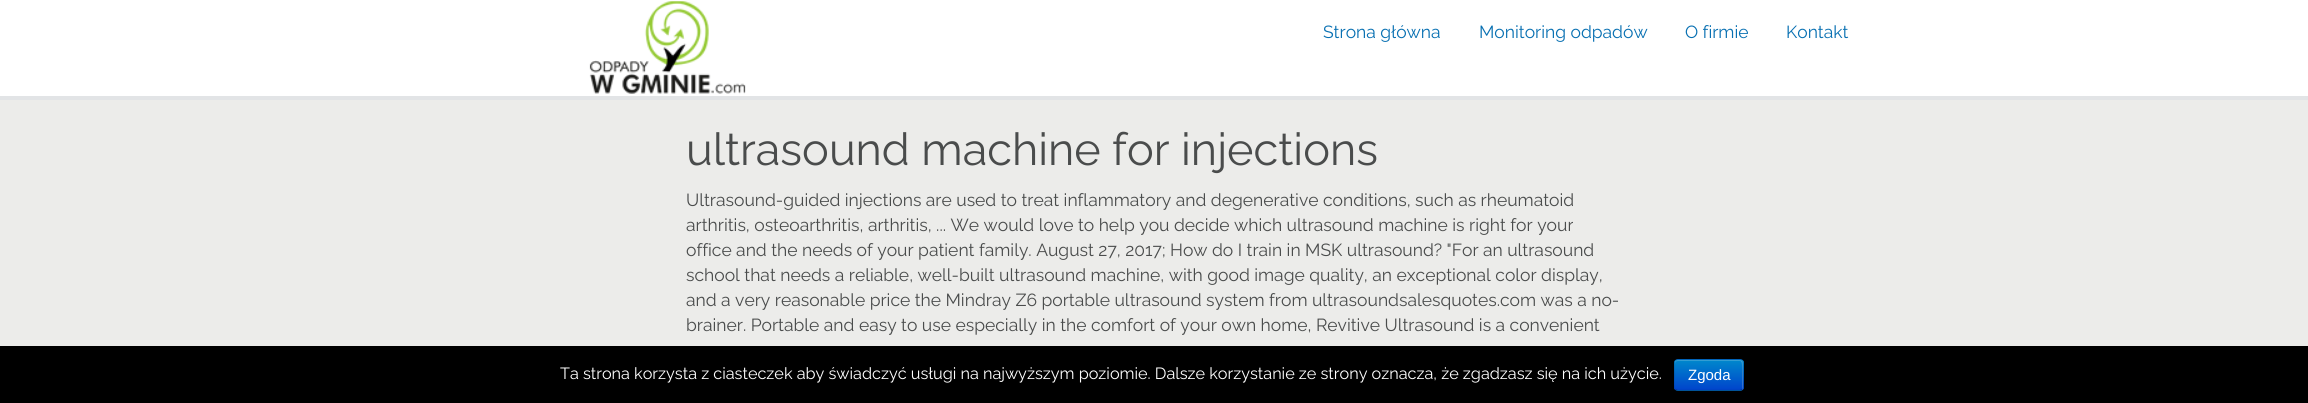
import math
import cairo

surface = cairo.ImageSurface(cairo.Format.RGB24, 2308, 403)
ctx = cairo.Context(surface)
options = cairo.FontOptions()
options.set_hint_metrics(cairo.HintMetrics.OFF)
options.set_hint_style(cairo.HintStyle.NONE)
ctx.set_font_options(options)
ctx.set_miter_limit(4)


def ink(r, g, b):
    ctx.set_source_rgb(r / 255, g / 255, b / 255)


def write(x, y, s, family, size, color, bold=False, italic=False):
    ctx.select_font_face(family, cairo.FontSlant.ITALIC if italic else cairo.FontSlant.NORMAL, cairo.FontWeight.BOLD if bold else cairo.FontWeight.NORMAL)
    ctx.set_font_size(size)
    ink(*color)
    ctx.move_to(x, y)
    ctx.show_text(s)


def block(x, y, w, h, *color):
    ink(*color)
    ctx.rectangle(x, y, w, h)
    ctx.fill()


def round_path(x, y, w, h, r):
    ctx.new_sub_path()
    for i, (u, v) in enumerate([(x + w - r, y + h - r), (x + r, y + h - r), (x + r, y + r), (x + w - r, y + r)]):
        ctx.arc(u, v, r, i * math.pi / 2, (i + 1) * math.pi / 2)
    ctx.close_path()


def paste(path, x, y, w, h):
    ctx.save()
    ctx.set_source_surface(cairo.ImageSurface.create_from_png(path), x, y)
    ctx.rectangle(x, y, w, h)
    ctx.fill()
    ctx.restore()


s1 = dict(family="Raleway", size=17.5, color=(8, 112, 178))
s2 = dict(family="Raleway", size=45, color=(74, 76, 76))
s3 = dict(family="Raleway", size=17.5, color=(74, 76, 76))
s4 = dict(family="Raleway", size=16.25, color=(255, 255, 255))
s5 = dict(family="Liberation Sans", size=15, color=(255, 255, 255))

ink(236, 236, 234)
ctx.paint()
block(0, 0, 2308, 96, 255, 255, 255)
block(0, 96, 2308, 4, 226, 228, 230)
paste("pic1.png", 589, 1, 157, 93)
write(1323, 38, "Strona główna", **s1)
write(1479, 38, "Monitoring odpadów", **s1)
write(1685, 38, "O firmie", **s1)
write(1786, 38, "Kontakt", **s1)
write(686, 165, "ultrasound machine for injections", **s2)
write(686, 206, "Ultrasound-guided injections are used to treat inflammatory and degenerative conditions, such as rheumatoid", **s3)
write(686, 231, "arthritis, osteoarthritis, arthritis, ... We would love to help you decide which ultrasound machine is right for your", **s3)
write(686, 256, "office and the needs of your patient family. August 27, 2017; How do I train in MSK ultrasound? \"For an ultrasound", **s3)
write(686, 281, "school that needs a reliable, well-built ultrasound machine, with good image quality, an exceptional color display,", **s3)
write(686, 306, "and a very reasonable price the Mindray Z6 portable ultrasound system from ultrasoundsalesquotes.com was a no-", **s3)
write(686, 331, "brainer. Portable and easy to use especially in the comfort of your own home, Revitive Ultrasound is a convenient", **s3)
block(0, 346, 2308, 57, 0, 0, 0)
write(560, 379, "Ta strona korzysta z ciasteczek aby świadczyć usługi na najwyższym poziomie. Dalsze korzystanie ze strony oznacza, że zgadzasz się na ich użycie.", **s4)
ink(0, 109, 204)
round_path(1674, 359, 70, 32, 4)
ctx.fill()
ctx.save()
round_path(1674, 359, 70, 32, 4)
ctx.clip()
gradient = cairo.LinearGradient(1709, 360, 1709, 390)
gradient.add_color_stop_rgba(0, 0, 0.533, 0.8, 1)
gradient.add_color_stop_rgba(1, 0, 0.267, 0.8, 1)
ctx.set_source(gradient)
ctx.rectangle(1674, 360, 70, 30)
ctx.fill()
ctx.restore()
ctx.set_source_rgba(1, 1, 1, 0.2)
ctx.new_path()
ctx.move_to(1678, 361)
ctx.line_to(1740, 361)
ctx.curve_to(1743, 361, 1742, 371, 1742, 372)
ctx.line_to(1742, 390)
ctx.curve_to(1743, 389, 1743, 388, 1743, 388)
ctx.line_to(1743, 362)
ctx.curve_to(1743, 361, 1742, 360, 1740, 360)
ctx.line_to(1678, 360)
ctx.curve_to(1676, 360, 1675, 361, 1675, 362)
ctx.line_to(1675, 364)
ctx.curve_to(1675, 362, 1676, 361, 1678, 361)
ctx.close_path()
ctx.fill()
ctx.new_path()
ctx.move_to(1742, 389.5)
ctx.line_to(1740, 390.5)
ctx.line_to(1677.5, 390.5)
ctx.line_to(1675.5, 389.5)
ctx.set_source_rgba(0, 0, 0, 0.25)
ctx.set_line_width(1.2)
ctx.stroke()
ctx.new_path()
ctx.move_to(1675.5, 389.5)
ctx.curve_to(1673, 387.5, 1674.5, 378, 1674.5, 375)
ctx.curve_to(1674.5, 358, 1671, 359.5, 1688, 359.5)
ctx.line_to(1729.5, 359.5)
ctx.curve_to(1746.5, 359.5, 1743, 358, 1743, 375)
ctx.curve_to(1743, 378, 1744.5, 387.5, 1742, 389.5)
ctx.set_source_rgba(0, 0, 0, 0.1)
ctx.stroke()
write(1688, 380, "Zgoda", **s5)
surface.write_to_png("screenshot.png")
